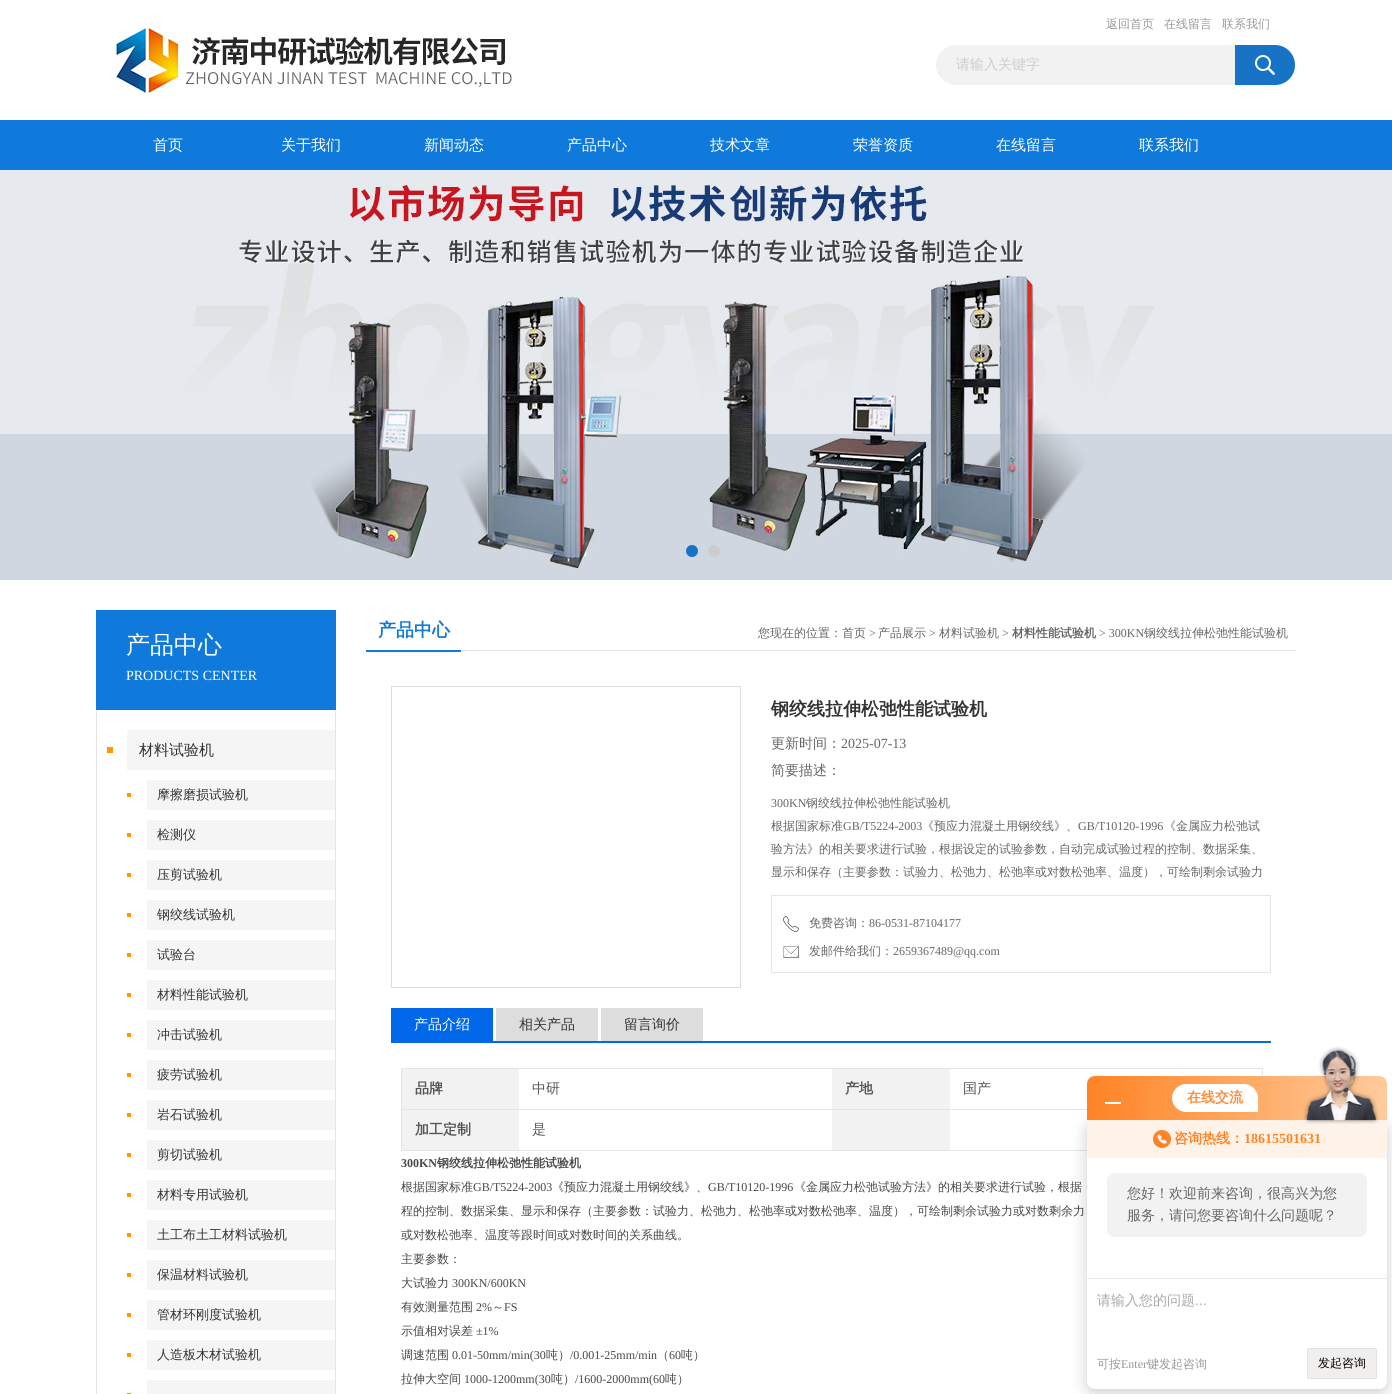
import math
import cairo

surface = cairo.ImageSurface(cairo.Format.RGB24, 1392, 1394)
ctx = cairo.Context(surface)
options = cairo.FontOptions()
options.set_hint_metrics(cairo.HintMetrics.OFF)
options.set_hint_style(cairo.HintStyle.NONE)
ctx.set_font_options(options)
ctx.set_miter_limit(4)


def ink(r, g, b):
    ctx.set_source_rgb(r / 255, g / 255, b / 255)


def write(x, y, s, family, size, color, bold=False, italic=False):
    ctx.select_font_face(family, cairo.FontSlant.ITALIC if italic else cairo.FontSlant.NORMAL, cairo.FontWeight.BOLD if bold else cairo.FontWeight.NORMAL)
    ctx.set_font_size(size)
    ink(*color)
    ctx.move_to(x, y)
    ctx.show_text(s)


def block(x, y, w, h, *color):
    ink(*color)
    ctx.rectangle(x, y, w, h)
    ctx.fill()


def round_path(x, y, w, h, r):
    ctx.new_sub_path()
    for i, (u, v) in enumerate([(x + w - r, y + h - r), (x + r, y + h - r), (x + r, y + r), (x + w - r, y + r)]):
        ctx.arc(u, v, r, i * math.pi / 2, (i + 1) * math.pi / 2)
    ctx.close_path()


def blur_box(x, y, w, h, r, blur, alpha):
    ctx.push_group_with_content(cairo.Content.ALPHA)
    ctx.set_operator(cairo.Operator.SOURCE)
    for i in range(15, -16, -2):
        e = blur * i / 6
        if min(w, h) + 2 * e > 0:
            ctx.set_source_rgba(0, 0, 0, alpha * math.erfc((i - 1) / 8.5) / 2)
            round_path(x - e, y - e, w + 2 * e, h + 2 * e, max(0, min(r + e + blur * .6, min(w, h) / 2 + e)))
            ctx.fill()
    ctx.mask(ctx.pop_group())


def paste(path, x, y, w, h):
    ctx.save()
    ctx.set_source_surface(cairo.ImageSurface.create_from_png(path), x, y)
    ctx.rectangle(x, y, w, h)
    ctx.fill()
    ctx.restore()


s1 = dict(family="WenQuanYi Zen Hei Medium", size=12, color=(153, 153, 153))
s2 = dict(family="WenQuanYi Zen Hei Medium", size=14, color=(204, 204, 204))
s3 = dict(family="WenQuanYi Zen Hei Medium", size=15, color=(255, 255, 255))
s4 = dict(family="WenQuanYi Zen Hei Medium", size=24, color=(255, 255, 255))
s5 = dict(family="Liberation Serif", size=14, color=(255, 255, 255))
s6 = dict(family="WenQuanYi Zen Hei Medium", size=15, color=(51, 51, 51))
s7 = dict(family="WenQuanYi Zen Hei Medium", size=13, color=(51, 51, 51))
s8 = dict(family="WenQuanYi Zen Hei", size=18, color=(15, 122, 219), bold=True)
s9 = dict(family="WenQuanYi Zen Hei Medium", size=12, color=(102, 102, 102))
s10 = dict(family="Liberation Serif", size=12, color=(102, 102, 102))
s11 = dict(family="WenQuanYi Zen Hei", size=12, color=(102, 102, 102), bold=True)
s12 = dict(family="WenQuanYi Zen Hei", size=18, color=(51, 51, 51), bold=True)
s13 = dict(family="WenQuanYi Zen Hei Medium", size=14, color=(102, 102, 102))
s14 = dict(family="Liberation Serif", size=14, color=(102, 102, 102))
s15 = dict(family="WenQuanYi Zen Hei Medium", size=14, color=(255, 255, 255))
s16 = dict(family="WenQuanYi Zen Hei Medium", size=14, color=(51, 51, 51))
s17 = dict(family="WenQuanYi Zen Hei", size=14, color=(85, 85, 85), bold=True)
s18 = dict(family="WenQuanYi Zen Hei Medium", size=14, color=(85, 85, 85))
s19 = dict(family="Liberation Serif", size=12, color=(71, 71, 71), bold=True)
s20 = dict(family="WenQuanYi Zen Hei", size=12, color=(71, 71, 71), bold=True)
s21 = dict(family="WenQuanYi Zen Hei Medium", size=12, color=(71, 71, 71))
s22 = dict(family="Liberation Serif", size=12, color=(71, 71, 71))
s23 = dict(family="WenQuanYi Zen Hei", size=14, color=(251, 139, 54), bold=True)
s24 = dict(family="WenQuanYi Zen Hei", size=14, color=(255, 132, 38), bold=True)
s25 = dict(family="Liberation Serif", size=14, color=(255, 132, 38), bold=True)
s26 = dict(family="WenQuanYi Zen Hei Medium", size=14, color=(170, 170, 170))
s27 = dict(family="Liberation Sans", size=14, color=(170, 170, 170))
s28 = dict(family="Liberation Serif", size=12, color=(153, 153, 153))
s29 = dict(family="WenQuanYi Zen Hei Medium", size=12, color=(0, 0, 0))

ink(255, 255, 255)
ctx.paint()
paste("pic1.png", 114, 23, 398, 70)
write(1106, 28, "返回首页", **s1)
write(1164, 28, "在线留言", **s1)
write(1222, 28, "联系我们", **s1)
ink(242, 242, 242)
ctx.new_path()
ctx.move_to(956, 45)
ctx.line_to(1235, 45)
ctx.line_to(1235, 85)
ctx.line_to(956, 85)
ctx.curve_to(945, 85, 936, 76, 936, 65)
ctx.curve_to(936, 54, 945, 45, 956, 45)
ctx.close_path()
ctx.fill()
write(956, 69, "请输入关键字", **s2)
paste("pic2.png", 1235, 45, 60, 40)
block(0, 120, 1392, 50, 15, 122, 219)
write(153, 150, "首页", **s3)
write(281, 150, "关于我们", **s3)
write(424, 150, "新闻动态", **s3)
write(567, 150, "产品中心", **s3)
write(710, 150, "技术文章", **s3)
write(853, 150, "荣誉资质", **s3)
write(996, 150, "在线留言", **s3)
write(1139, 150, "联系我们", **s3)
paste("pic3.png", 0, 170, 1392, 410)
ink(23, 115, 198)
ctx.arc(692, 551, 6, 0, 2 * math.pi)
ctx.fill()
ink(204, 204, 204)
ctx.arc(714, 551, 6, 0, 2 * math.pi)
ctx.fill()
block(96, 610, 240, 100, 15, 122, 219)
write(126, 653, "产品中心", **s4)
write(126, 680, "PRODUCTS CENTER", **s5)
block(335, 710, 1, 684, 229, 229, 229)
block(96, 710, 1, 684, 229, 229, 229)
block(107, 747, 6, 6, 255, 153, 0)
block(127, 730, 208, 40, 245, 245, 245)
write(139, 755, "材料试验机", **s6)
block(127, 793, 4, 4, 255, 153, 0)
block(147, 780, 188, 30, 245, 245, 245)
write(157, 799, "摩擦磨损试验机", **s7)
block(127, 833, 4, 4, 255, 153, 0)
block(147, 820, 188, 30, 245, 245, 245)
write(157, 839, "检测仪", **s7)
block(127, 873, 4, 4, 255, 153, 0)
block(147, 860, 188, 30, 245, 245, 245)
write(157, 879, "压剪试验机", **s7)
block(127, 913, 4, 4, 255, 153, 0)
block(147, 900, 188, 30, 245, 245, 245)
write(157, 919, "钢绞线试验机", **s7)
block(127, 953, 4, 4, 255, 153, 0)
block(147, 940, 188, 30, 245, 245, 245)
write(157, 959, "试验台", **s7)
block(127, 993, 4, 4, 255, 153, 0)
block(147, 980, 188, 30, 245, 245, 245)
write(157, 999, "材料性能试验机", **s7)
block(127, 1033, 4, 4, 255, 153, 0)
block(147, 1020, 188, 30, 245, 245, 245)
write(157, 1039, "冲击试验机", **s7)
block(127, 1073, 4, 4, 255, 153, 0)
block(147, 1060, 188, 30, 245, 245, 245)
write(157, 1079, "疲劳试验机", **s7)
block(127, 1113, 4, 4, 255, 153, 0)
block(147, 1100, 188, 30, 245, 245, 245)
write(157, 1119, "岩石试验机", **s7)
block(127, 1153, 4, 4, 255, 153, 0)
block(147, 1140, 188, 30, 245, 245, 245)
write(157, 1159, "剪切试验机", **s7)
block(127, 1193, 4, 4, 255, 153, 0)
block(147, 1180, 188, 30, 245, 245, 245)
write(157, 1199, "材料专用试验机", **s7)
block(127, 1233, 4, 4, 255, 153, 0)
block(147, 1220, 188, 30, 245, 245, 245)
write(157, 1239, "土工布土工材料试验机", **s7)
block(127, 1273, 4, 4, 255, 153, 0)
block(147, 1260, 188, 30, 245, 245, 245)
write(157, 1279, "保温材料试验机", **s7)
block(127, 1313, 4, 4, 255, 153, 0)
block(147, 1300, 188, 30, 245, 245, 245)
write(157, 1319, "管材环刚度试验机", **s7)
block(127, 1353, 4, 4, 255, 153, 0)
block(147, 1340, 188, 30, 245, 245, 245)
write(157, 1359, "人造板木材试验机", **s7)
block(127, 1393, 4, 1, 255, 153, 0)
block(147, 1380, 188, 14, 245, 245, 245)
block(461, 650, 835, 1, 229, 229, 229)
block(366, 650, 95, 2, 15, 122, 219)
write(378, 636, "产品中心", **s8)
write(758, 637, "您现在的位置：首页", **s9)
write(869, 637, ">", **s10)
write(878, 637, "产品展示", **s9)
write(929, 637, ">", **s10)
write(939, 637, "材料试验机", **s9)
write(1002, 637, ">", **s10)
write(1012, 637, "材料性能试验机", **s11)
write(1099, 637, "> 300KN", **s10)
write(1144, 637, "钢绞线拉伸松弛性能试验机", **s9)
ctx.rectangle(391.5, 686.5, 349, 301)
ink(221, 221, 221)
ctx.set_line_width(1)
ctx.stroke()
write(771, 715, "钢绞线拉伸松弛性能试验机", **s12)
write(771, 748, "更新时间：", **s13)
write(841, 748, "2025-07-13", **s14)
write(771, 775, "简要描述：", **s13)
write(771, 807, "300KN", **s10)
write(806, 807, "钢绞线拉伸松弛性能试验机", **s9)
write(771, 830, "根据国家标准", **s9)
write(843, 830, "GB/T5224-2003", **s10)
write(922, 830, "《预应力混凝土用钢绞线》、", **s9)
write(1078, 830, "GB/T10120-1996", **s10)
write(1164, 830, "《金属应力松弛试", **s9)
write(771, 853, "验方法》的相关要求进行试验，根据设定的试验参数，自动完成试验过程的控制、数据采集、", **s9)
write(771, 876, "显示和保存（主要参数：试验力、松弛力、松弛率或对数松弛率、温度），可绘制剩余试验力", **s9)
ctx.rectangle(771.5, 895.5, 499, 77)
ink(230, 230, 230)
ctx.stroke()
paste("pic4.png", 783, 916, 16, 16)
write(809, 927, "免费咨询：", **s9)
write(869, 927, "86-0531-87104177", **s10)
paste("pic5.png", 783, 946, 16, 12)
write(809, 955, "发邮件给我们：", **s9)
write(893, 955, "2659367489@qq.com", **s10)
block(391, 1041, 880, 2, 1, 104, 233)
block(391, 1008, 102, 33, 1, 104, 233)
write(414, 1029, "产品介绍", **s15)
block(496, 1008, 102, 33, 221, 221, 221)
write(519, 1029, "相关产品", **s16)
block(601, 1008, 102, 33, 221, 221, 221)
write(624, 1029, "留言询价", **s16)
block(401, 1068, 862, 1, 230, 229, 229)
block(1262, 1068, 1, 8, 230, 229, 229)
block(401, 1068, 1, 83, 230, 229, 229)
block(402, 1069, 117, 40, 242, 242, 242)
write(415, 1093, "品牌", **s17)
write(532, 1093, "中研", **s18)
block(832, 1069, 118, 40, 242, 242, 242)
write(845, 1093, "产地", **s17)
block(401, 1109, 686, 1, 230, 229, 229)
write(963, 1093, "国产", **s18)
block(402, 1110, 117, 40, 242, 242, 242)
write(415, 1134, "加工定制", **s17)
write(532, 1134, "是", **s18)
block(832, 1110, 118, 40, 242, 242, 242)
block(401, 1150, 686, 1, 230, 229, 229)
write(401, 1167, "300KN", **s19)
write(437, 1167, "钢绞线拉伸松弛性能试验机", **s20)
write(401, 1191, "根据国家标准", **s21)
write(473, 1191, "GB/T5224-2003", **s22)
write(552, 1191, "《预应力混凝土用钢绞线》、", **s21)
write(708, 1191, "GB/T10120-1996", **s22)
write(794, 1191, "《金属应力松弛试验方法》的相关要求进行试验，根据", **s21)
write(401, 1215, "程的控制、数据采集、显示和保存（主要参数：试验力、松弛力、松弛率或对数松弛率、温度），可绘制剩余试验力或对数剩余力", **s21)
write(401, 1239, "或对数松弛率、温度等跟时间或对数时间的关系曲线。", **s21)
write(401, 1263, "主要参数：", **s21)
write(401, 1287, "大试验力", **s21)
write(452, 1287, "300KN/600KN", **s22)
write(401, 1311, "有效测量范围", **s21)
write(476, 1311, "2%", **s22)
write(492, 1311, "～", **s21)
write(504, 1311, "FS", **s22)
write(401, 1335, "示值相对误差", **s21)
write(476, 1335, "±1%", **s22)
write(401, 1359, "调速范围", **s21)
write(452, 1359, "0.01-50mm/min(30", **s22)
write(546, 1359, "吨）", **s21)
write(570, 1359, "/0.001-25mm/min", **s22)
write(657, 1359, "（", **s21)
write(669, 1359, "60", **s22)
write(681, 1359, "吨）", **s21)
write(401, 1383, "拉伸大空间", **s21)
write(464, 1383, "1000-1200mm(30", **s22)
write(551, 1383, "吨）", **s21)
write(575, 1383, "/1600-2000mm(60", **s22)
write(665, 1383, "吨）", **s21)
ink(0, 0, 0)
blur_box(1087, 1124, 300, 269, 8, 8, 0.2)
gradient = cairo.LinearGradient(1087, 1098, 1387, 1098)
gradient.add_color_stop_rgba(0, 1, 0.514, 0.141, 1)
gradient.add_color_stop_rgba(1, 0.996, 0.796, 0.612, 1)
ctx.set_source(gradient)
ctx.new_path()
ctx.move_to(1095, 1076)
ctx.line_to(1379, 1076)
ctx.curve_to(1383.5, 1076, 1387, 1079.5, 1387, 1084)
ctx.line_to(1387, 1120)
ctx.line_to(1087, 1120)
ctx.line_to(1087, 1084)
ctx.curve_to(1087, 1079.5, 1090.5, 1076, 1095, 1076)
ctx.close_path()
ctx.fill()
block(1105, 1102, 16, 2, 255, 255, 255)
ctx.new_path()
ctx.move_to(1186, 1084)
ctx.line_to(1244, 1084)
ctx.curve_to(1251.5, 1084, 1258, 1090.5, 1258, 1098)
ctx.line_to(1258, 1112)
ctx.line_to(1186, 1112)
ctx.curve_to(1178.5, 1112, 1172, 1105.5, 1172, 1098)
ctx.curve_to(1172, 1090.5, 1178.5, 1084, 1186, 1084)
ctx.close_path()
ctx.fill()
write(1187, 1102, "在线交流", **s23)
ink(255, 255, 255)
ctx.new_path()
ctx.move_to(1087, 1120)
ctx.line_to(1387, 1120)
ctx.line_to(1387, 1381)
ctx.curve_to(1387, 1385.5, 1383.5, 1389, 1379, 1389)
ctx.line_to(1095, 1389)
ctx.curve_to(1090.5, 1389, 1087, 1385.5, 1087, 1381)
ctx.close_path()
ctx.fill()
block(1087, 1120, 300, 38, 255, 243, 233)
paste("pic6.png", 1303, 1046, 76, 78)
paste("pic7.png", 1153, 1130, 18, 18)
write(1174, 1143, "咨询热线：", **s24)
write(1244, 1143, "18615501631", **s25)
ink(242, 242, 242)
round_path(1107, 1173, 260, 64, 8)
ctx.fill()
write(1127, 1198, "您好！欢迎前来咨询，很高兴为您", **s13)
write(1127, 1220, "服务，请问您要咨询什么问题呢？", **s13)
block(1087, 1278, 300, 1, 234, 234, 234)
write(1097, 1305, "请输入您的问题", **s26)
write(1195, 1305, "...", **s27)
write(1097, 1368, "可按", **s1)
write(1121, 1368, "Enter", **s28)
write(1147, 1368, "键发起咨询", **s1)
ink(240, 239, 237)
round_path(1307.5, 1348.5, 69, 30, 1.5)
ctx.fill_preserve()
ink(226, 226, 226)
ctx.stroke()
write(1318, 1367, "发起咨询", **s29)
surface.write_to_png("screenshot.png")
